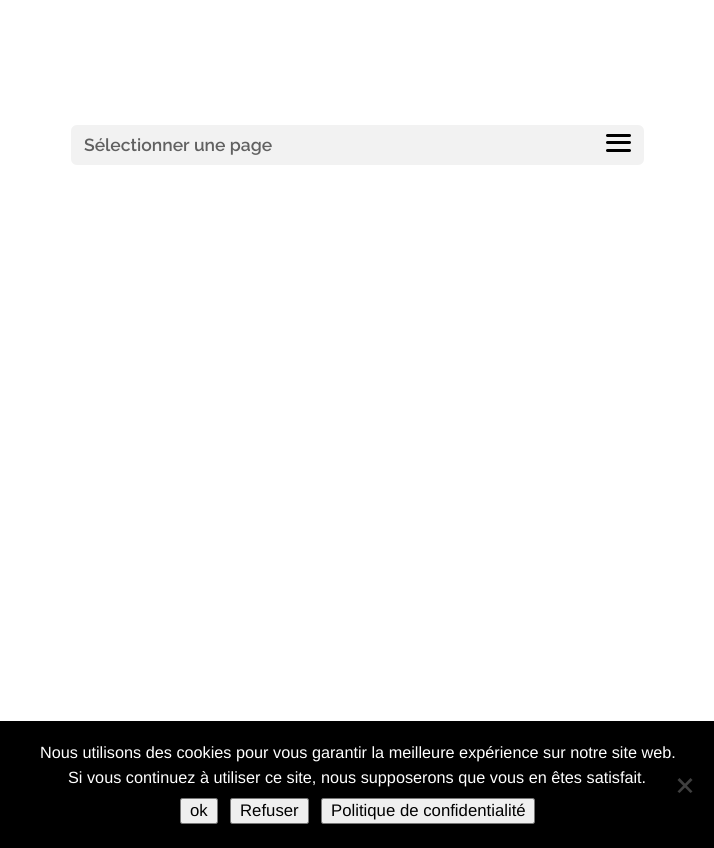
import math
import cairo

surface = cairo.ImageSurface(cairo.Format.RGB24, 714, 848)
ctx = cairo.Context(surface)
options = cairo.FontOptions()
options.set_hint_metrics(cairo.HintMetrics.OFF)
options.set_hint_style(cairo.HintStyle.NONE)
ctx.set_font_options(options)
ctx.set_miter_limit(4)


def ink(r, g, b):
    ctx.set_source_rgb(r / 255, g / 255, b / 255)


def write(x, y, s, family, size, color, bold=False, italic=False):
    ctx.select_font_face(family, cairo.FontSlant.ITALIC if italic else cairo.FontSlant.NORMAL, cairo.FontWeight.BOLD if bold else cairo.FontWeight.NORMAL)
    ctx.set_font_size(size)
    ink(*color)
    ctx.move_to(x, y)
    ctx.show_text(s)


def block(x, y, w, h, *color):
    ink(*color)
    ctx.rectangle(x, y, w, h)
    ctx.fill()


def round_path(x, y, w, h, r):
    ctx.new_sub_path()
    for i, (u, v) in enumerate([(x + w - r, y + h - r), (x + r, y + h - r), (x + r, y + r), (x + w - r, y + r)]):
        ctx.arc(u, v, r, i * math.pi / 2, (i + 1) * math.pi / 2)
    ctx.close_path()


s1 = dict(family="Raleway Thin", size=17.5, color=(97, 97, 97))
s2 = dict(family="Liberation Sans", size=16.25, color=(255, 255, 255))
s3 = dict(family="Liberation Sans", size=16.75, color=(0, 0, 0))

ink(255, 255, 255)
ctx.paint()
ink(242, 242, 242)
round_path(71, 125, 573, 40, 6)
ctx.fill()
write(84, 151, "Sélectionner une page", **s1)
ink(0, 0, 0)
round_path(606, 134, 25, 3, 1.5)
ctx.fill()
round_path(606, 141, 25, 3, 1.5)
ctx.fill()
round_path(606, 149, 25, 3, 1.5)
ctx.fill()
block(0, 721, 714, 127, 0, 0, 0)
write(40, 758, "Nous utilisons des cookies pour vous garantir la meilleure expérience sur notre site web.", **s2)
write(68, 783, "Si vous continuez à utiliser ce site, nous supposerons que vous en êtes satisfait.", **s2)
ink(64, 64, 64)
ctx.new_path()
ctx.move_to(690.5, 778)
ctx.line_to(692.5, 780)
ctx.line_to(679.5, 793)
ctx.line_to(677.5, 791.5)
ctx.close_path()
ctx.fill()
ctx.new_path()
ctx.move_to(677.5, 780)
ctx.line_to(679.5, 778)
ctx.line_to(692.5, 791.5)
ctx.line_to(690.5, 793)
ctx.close_path()
ctx.fill()
ink(239, 239, 239)
round_path(180.5, 798.5, 37, 25, 2)
ctx.fill_preserve()
ink(118, 118, 118)
ctx.set_line_width(1)
ctx.stroke()
write(190, 816, "ok", **s3)
ink(239, 239, 239)
round_path(230.5, 798.5, 78, 25, 2)
ctx.fill_preserve()
ink(118, 118, 118)
ctx.stroke()
write(240, 816, "Refuser", **s3)
ink(239, 239, 239)
round_path(321.5, 798.5, 213, 25, 2)
ctx.fill_preserve()
ink(118, 118, 118)
ctx.stroke()
write(331, 816, "Politique de confidentialité", **s3)
surface.write_to_png("screenshot.png")
